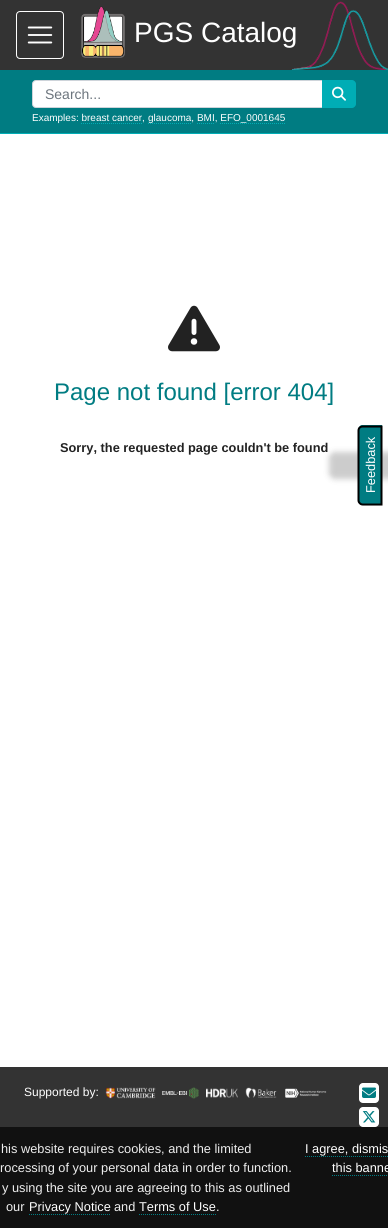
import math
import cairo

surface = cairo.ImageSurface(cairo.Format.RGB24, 388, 1228)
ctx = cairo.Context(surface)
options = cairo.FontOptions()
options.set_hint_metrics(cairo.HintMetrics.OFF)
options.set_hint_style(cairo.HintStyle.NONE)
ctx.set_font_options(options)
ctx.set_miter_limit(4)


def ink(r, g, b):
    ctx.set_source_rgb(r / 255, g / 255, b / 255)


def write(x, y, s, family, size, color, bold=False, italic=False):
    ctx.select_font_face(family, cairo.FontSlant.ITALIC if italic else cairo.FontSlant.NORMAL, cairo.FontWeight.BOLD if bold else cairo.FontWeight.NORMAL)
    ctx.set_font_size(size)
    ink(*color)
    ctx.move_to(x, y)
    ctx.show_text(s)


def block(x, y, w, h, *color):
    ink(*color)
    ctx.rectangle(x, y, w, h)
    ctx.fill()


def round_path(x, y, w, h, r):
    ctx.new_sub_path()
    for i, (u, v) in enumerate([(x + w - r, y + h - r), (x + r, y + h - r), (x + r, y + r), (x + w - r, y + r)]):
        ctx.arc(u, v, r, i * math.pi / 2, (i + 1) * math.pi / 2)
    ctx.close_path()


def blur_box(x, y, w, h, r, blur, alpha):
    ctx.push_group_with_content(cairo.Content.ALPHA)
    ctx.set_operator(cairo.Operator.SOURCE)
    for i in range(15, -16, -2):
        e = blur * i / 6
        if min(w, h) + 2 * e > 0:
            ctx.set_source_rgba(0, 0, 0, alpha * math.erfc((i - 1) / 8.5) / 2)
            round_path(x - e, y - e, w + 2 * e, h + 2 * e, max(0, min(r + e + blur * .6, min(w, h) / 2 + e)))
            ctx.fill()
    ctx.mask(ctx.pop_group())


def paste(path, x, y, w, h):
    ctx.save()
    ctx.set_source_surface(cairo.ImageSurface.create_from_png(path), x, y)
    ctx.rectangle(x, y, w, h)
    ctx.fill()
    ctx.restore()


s1 = dict(family="Liberation Sans", size=28, color=(255, 255, 255))
s2 = dict(family="Liberation Sans", size=14, color=(108, 117, 125))
s3 = dict(family="Liberation Sans", size=10, color=(255, 255, 255))
s4 = dict(family="Liberation Sans", size=24, color=(0, 124, 130))
s5 = dict(family="Liberation Sans", size=12.8, color=(34, 34, 34), bold=True)
s6 = dict(family="Liberation Sans", size=12.8, color=(255, 255, 255))
s7 = dict(family="Liberation Sans", size=12, color=(255, 255, 255))
s8 = dict(family="Liberation Sans", size=12.8, color=(238, 238, 238))

ink(255, 255, 255)
ctx.paint()
block(0, 0, 388, 70, 51, 51, 51)
paste("pic1.png", 292, 1, 96, 69)
round_path(16.5, 11.5, 47, 47, 3.5)
ink(255, 255, 255)
ctx.set_line_width(1)
ctx.stroke()
paste("pic2.png", 27, 26, 26, 18)
paste("pic3.png", 81, 6, 44, 52)
write(134, 42, "PGS Catalog", **s1)
block(0, 70, 388, 63, 0, 124, 130)
block(0, 133, 388, 1, 0, 173, 181)
ink(255, 255, 255)
ctx.new_path()
ctx.move_to(36, 80.5)
ctx.line_to(322.5, 80.5)
ctx.line_to(322.5, 107.5)
ctx.line_to(36, 107.5)
ctx.curve_to(34, 107.5, 32.5, 106, 32.5, 104)
ctx.line_to(32.5, 84)
ctx.curve_to(32.5, 82, 34, 80.5, 36, 80.5)
ctx.close_path()
ctx.fill_preserve()
ink(206, 212, 218)
ctx.stroke()
write(45, 99, "Search...", **s2)
ink(0, 173, 181)
ctx.new_path()
ctx.move_to(322, 80)
ctx.line_to(352, 80)
ctx.curve_to(354, 80, 356, 82, 356, 84)
ctx.line_to(356, 104)
ctx.curve_to(356, 106, 354, 108, 352, 108)
ctx.line_to(322, 108)
ctx.close_path()
ctx.fill()
paste("pic4.png", 332, 86, 14, 15)
write(32, 121, "Examples: breast cancer,", **s3)
ctx.new_path()
ctx.move_to(148, 123.5)
ctx.line_to(191, 123.5)
ink(0, 173, 181)
ctx.set_dash([1, 1])
ctx.stroke()
write(148, 121, "glaucoma, BMI, EFO_0001645", **s3)
ctx.new_path()
ctx.move_to(81, 123.5)
ctx.line_to(142, 123.5)
ink(0, 173, 181)
ctx.stroke()
ctx.new_path()
ctx.move_to(197, 123.5)
ctx.line_to(214, 123.5)
ctx.stroke()
ctx.new_path()
ctx.move_to(220, 123.5)
ctx.line_to(285, 123.5)
ctx.stroke()
paste("pic5.png", 168, 305, 52, 47)
write(54, 400, "Page not found [error 404]", **s4)
write(60, 452, "Sorry, the requested page couldn't be found", **s5)
ink(0, 0, 0)
blur_box(329, 452, 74, 27, 6, 3, 0.2)
ink(0, 124, 130)
ctx.new_path()
ctx.move_to(358, 500)
ctx.line_to(358, 430)
ctx.curve_to(358, 428, 360, 425, 362, 425)
ctx.line_to(382, 425)
ctx.line_to(382, 505)
ctx.line_to(362, 505)
ctx.curve_to(360, 505, 358, 503, 358, 500)
ctx.close_path()
ctx.fill()
ctx.new_path()
ctx.move_to(358.5, 500.5)
ctx.line_to(358.5, 430.5)
ctx.curve_to(358.5, 428, 360.5, 426.5, 362.5, 426.5)
ctx.line_to(381.5, 426.5)
ctx.line_to(381.5, 504.5)
ctx.line_to(362.5, 504.5)
ctx.curve_to(360.5, 504.5, 358.5, 502.5, 358.5, 500.5)
ctx.close_path()
ink(0, 0, 0)
ctx.set_line_width(2)
ctx.set_dash([])
ctx.stroke()
ctx.save()
ctx.translate(375, 493)
ctx.rotate(-90 * math.pi / 180)
write(0, 0, "Feedback", **s6)
ctx.restore()
block(0, 1067, 388, 60, 51, 51, 51)
write(24, 1096, "Supported by:", **s7)
paste("pic6.png", 105, 1087, 51, 12)
paste("pic7.png", 162, 1087, 37, 12)
paste("pic8.png", 206, 1088, 32, 10)
paste("pic9.png", 245, 1087, 32, 11)
paste("pic10.png", 285, 1088, 42, 10)
round_path(359, 1083, 20, 20, 4)
ctx.fill()
paste("pic11.png", 362, 1087, 14, 11)
round_path(359, 1107, 20, 20, 4)
ctx.fill()
paste("pic12.png", 362, 1111, 14, 12)
block(0, 1127, 388, 101, 17, 17, 17)
write(1, 1153, "his website requires cookies, and the limited", **s8)
write(0, 1172, "rocessing of your personal data in order to function.", **s8)
write(2, 1192, "y using the site you are agreeing to this as outlined", **s8)
write(6, 1211, "our", **s8)
write(29, 1211, "Privacy Notice", **s6)
ctx.new_path()
ctx.move_to(29, 1214.5)
ctx.line_to(110, 1214.5)
ink(0, 124, 130)
ctx.set_line_width(1)
ctx.set_dash([1, 1])
ctx.stroke()
write(114, 1211, "and", **s8)
write(139, 1211, "Terms of Use", **s6)
ctx.new_path()
ctx.move_to(139, 1214.5)
ctx.line_to(216, 1214.5)
ink(0, 124, 130)
ctx.stroke()
write(216, 1211, ".", **s8)
write(305, 1153, "I agree, dismis", **s6)
ctx.new_path()
ctx.move_to(305, 1156.5)
ctx.line_to(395, 1156.5)
ink(0, 124, 130)
ctx.stroke()
write(332, 1172, "this banne", **s6)
ctx.new_path()
ctx.move_to(332, 1175.5)
ctx.line_to(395, 1175.5)
ink(0, 124, 130)
ctx.stroke()
surface.write_to_png("screenshot.png")
